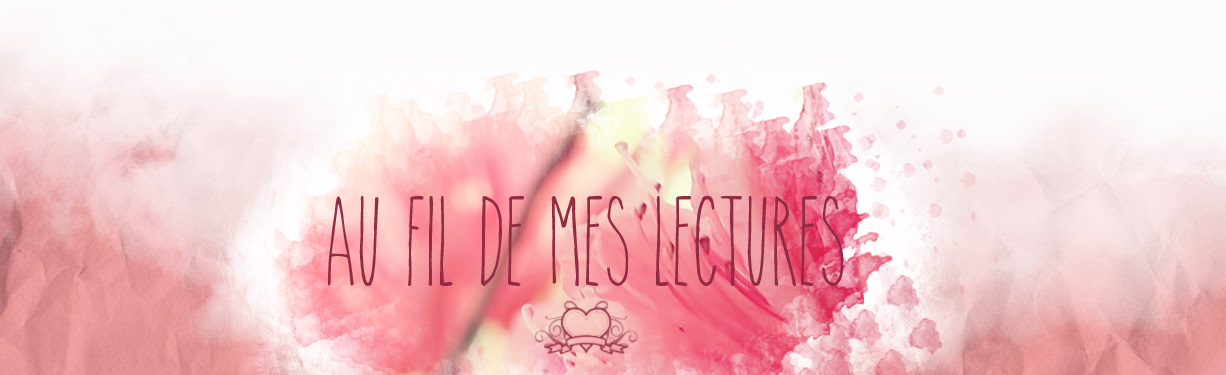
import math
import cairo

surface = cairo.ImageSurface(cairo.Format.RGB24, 1226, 375)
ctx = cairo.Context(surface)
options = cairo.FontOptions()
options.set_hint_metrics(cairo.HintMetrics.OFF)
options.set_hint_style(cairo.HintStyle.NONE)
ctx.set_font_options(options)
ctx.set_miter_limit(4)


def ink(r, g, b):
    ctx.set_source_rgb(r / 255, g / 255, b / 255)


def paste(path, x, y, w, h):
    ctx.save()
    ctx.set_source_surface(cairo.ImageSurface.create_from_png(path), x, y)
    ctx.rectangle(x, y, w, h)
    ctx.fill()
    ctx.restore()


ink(255, 255, 255)
ctx.paint()
paste("pic1.png", 0, 0, 1226, 375)
paste("pic2.png", 196, 70, 803, 305)
surface.write_to_png("screenshot.png")
